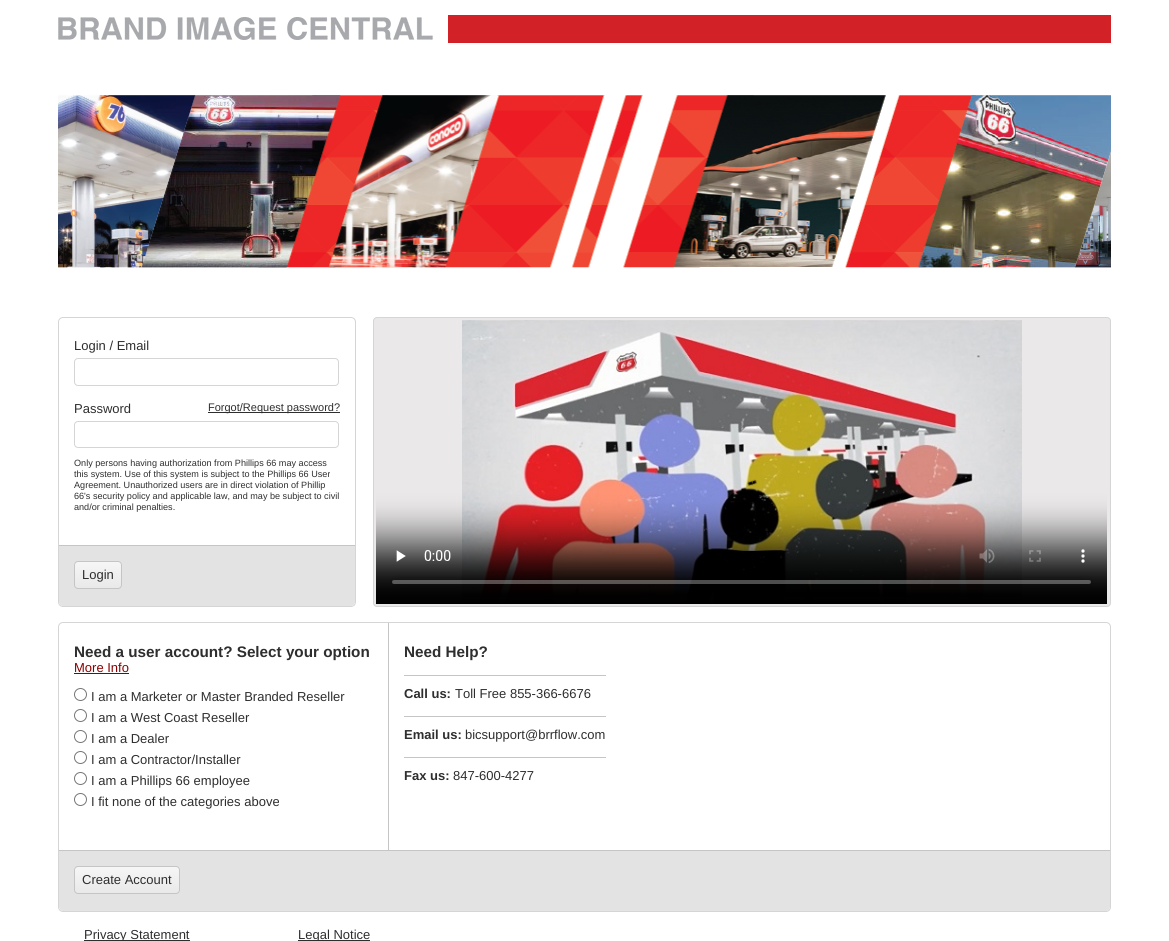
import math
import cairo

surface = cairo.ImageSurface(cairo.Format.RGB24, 1169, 941)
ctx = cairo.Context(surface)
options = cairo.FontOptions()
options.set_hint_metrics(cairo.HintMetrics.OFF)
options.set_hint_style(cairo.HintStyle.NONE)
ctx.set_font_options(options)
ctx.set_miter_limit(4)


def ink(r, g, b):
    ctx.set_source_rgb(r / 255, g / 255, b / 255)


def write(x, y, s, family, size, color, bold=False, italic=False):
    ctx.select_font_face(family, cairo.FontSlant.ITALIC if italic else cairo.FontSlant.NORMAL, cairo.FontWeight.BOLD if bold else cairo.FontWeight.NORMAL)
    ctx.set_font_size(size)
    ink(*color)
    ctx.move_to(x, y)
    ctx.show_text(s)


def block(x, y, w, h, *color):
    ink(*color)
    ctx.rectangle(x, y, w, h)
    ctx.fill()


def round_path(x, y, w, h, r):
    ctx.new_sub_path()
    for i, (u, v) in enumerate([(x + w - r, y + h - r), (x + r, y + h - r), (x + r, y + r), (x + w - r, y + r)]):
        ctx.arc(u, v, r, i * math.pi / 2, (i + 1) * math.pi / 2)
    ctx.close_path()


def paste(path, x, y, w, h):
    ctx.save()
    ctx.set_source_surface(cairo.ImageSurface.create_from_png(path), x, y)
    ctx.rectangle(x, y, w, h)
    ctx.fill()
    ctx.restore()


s1 = dict(family="Liberation Sans", size=13, color=(46, 46, 46))
s2 = dict(family="Liberation Sans", size=11, color=(46, 46, 46))
s3 = dict(family="Liberation Sans", size=9.1, color=(46, 46, 46))
s4 = dict(family="Liberation Sans", size=15.25, color=(46, 46, 46), bold=True)
s5 = dict(family="Liberation Sans", size=13, color=(138, 0, 0))
s6 = dict(family="Liberation Sans", size=13, color=(46, 46, 46), bold=True)

ink(255, 255, 255)
ctx.paint()
block(448, 15, 663, 28, 210, 33, 39)
paste("pic1.png", 58, 17, 375, 23)
paste("pic2.png", 58, 95, 1053, 173)
round_path(58.5, 317.5, 297, 289, 4.5)
ink(213, 213, 213)
ctx.set_line_width(1)
ctx.stroke()
write(74, 350, "Login / Email", **s1)
round_path(74.5, 358.5, 264, 27, 3.5)
ink(213, 213, 213)
ctx.stroke()
write(74, 413, "Password", **s1)
block(208, 412, 132, 1, 46, 46, 46)
write(208, 411, "Forgot/Request password?", **s2)
round_path(74.5, 421.5, 264, 26, 3.5)
ink(213, 213, 213)
ctx.stroke()
write(74, 466, "Only persons having authorization from Phillips 66 may access", **s3)
write(74, 477, "this system. Use of this system is subject to the Phillips 66 User", **s3)
write(74, 488, "Agreement. Unauthorized users are in direct violation of Phillip", **s3)
write(74, 499, "66's security policy and applicable law, and may be subject to civil", **s3)
write(74, 510, "and/or criminal penalties.", **s3)
ink(227, 227, 227)
ctx.new_path()
ctx.move_to(59, 545)
ctx.line_to(355, 545)
ctx.line_to(355, 602)
ctx.curve_to(355, 604, 353, 606, 351, 606)
ctx.line_to(63, 606)
ctx.curve_to(61, 606, 59, 604, 59, 602)
ctx.close_path()
ctx.fill()
block(59, 545, 296, 1, 197, 197, 197)
ctx.save()
round_path(74, 561, 48, 28, 4)
ctx.clip()
gradient = cairo.LinearGradient(98, 562, 98, 588)
gradient.add_color_stop_rgba(0, 0.965, 0.965, 0.965, 1)
gradient.add_color_stop_rgba(1, 0.914, 0.914, 0.914, 1)
ctx.set_source(gradient)
ctx.rectangle(74, 562, 48, 26)
ctx.fill()
ctx.restore()
round_path(74.5, 561.5, 47, 27, 3.5)
ctx.stroke()
write(82, 579, "Login", **s1)
ink(234, 232, 232)
round_path(373.5, 317.5, 737, 289, 3.5)
ctx.fill_preserve()
ink(213, 213, 213)
ctx.stroke()
paste("pic3.png", 376, 320, 731, 284)
round_path(58.5, 622.5, 1052, 289, 4.5)
ctx.stroke()
write(74, 657, "Need a user account? Select your option", **s4)
write(74, 672, "More Info", **s5)
block(74, 673, 55, 1, 138, 0, 0)
ctx.new_path()
ctx.arc(80.5, 694.5, 6, 0, 2 * math.pi)
ink(118, 118, 118)
ctx.stroke()
write(91, 701, "I am a Marketer or Master Branded Reseller", **s1)
ctx.new_path()
ctx.arc(80.5, 715.5, 6, 0, 2 * math.pi)
ink(118, 118, 118)
ctx.stroke()
write(91, 722, "I am a West Coast Reseller", **s1)
ctx.new_path()
ctx.arc(80.5, 736.5, 6, 0, 2 * math.pi)
ink(118, 118, 118)
ctx.stroke()
write(91, 743, "I am a Dealer", **s1)
ctx.new_path()
ctx.arc(80.5, 757.5, 6, 0, 2 * math.pi)
ink(118, 118, 118)
ctx.stroke()
write(91, 764, "I am a Contractor/Installer", **s1)
ctx.new_path()
ctx.arc(80.5, 778.5, 6, 0, 2 * math.pi)
ink(118, 118, 118)
ctx.stroke()
write(91, 785, "I am a Phillips 66 employee", **s1)
ctx.new_path()
ctx.arc(80.5, 799.5, 6, 0, 2 * math.pi)
ink(118, 118, 118)
ctx.stroke()
write(91, 806, "I fit none of the categories above", **s1)
block(388, 623, 1, 227, 197, 197, 197)
write(404, 657, "Need Help?", **s4)
block(404, 675, 202, 1, 197, 197, 197)
write(404, 698, "Call us:", **s6)
write(455, 698, "Toll Free 855-366-6676", **s1)
block(404, 716, 202, 1, 197, 197, 197)
write(404, 739, "Email us:", **s6)
write(465, 739, "bicsupport@brrflow.com", **s1)
block(404, 757, 202, 1, 197, 197, 197)
write(404, 780, "Fax us:", **s6)
write(453, 780, "847-600-4277", **s1)
ink(227, 227, 227)
ctx.new_path()
ctx.move_to(59, 850)
ctx.line_to(1110, 850)
ctx.line_to(1110, 907)
ctx.curve_to(1110, 909, 1108, 911, 1106, 911)
ctx.line_to(63, 911)
ctx.curve_to(61, 911, 59, 909, 59, 907)
ctx.close_path()
ctx.fill()
block(59, 850, 1051, 1, 197, 197, 197)
ctx.save()
round_path(74, 866, 106, 28, 4)
ctx.clip()
gradient = cairo.LinearGradient(127, 867, 127, 893)
gradient.add_color_stop_rgba(0, 0.965, 0.965, 0.965, 1)
gradient.add_color_stop_rgba(1, 0.914, 0.914, 0.914, 1)
ctx.set_source(gradient)
ctx.rectangle(74, 867, 106, 26)
ctx.fill()
ctx.restore()
round_path(74.5, 866.5, 105, 27, 3.5)
ctx.stroke()
write(82, 884, "Create Account", **s1)
block(84, 940, 106, 1, 46, 46, 46)
write(84, 939, "Privacy Statement", **s1)
block(298, 940, 72, 1, 46, 46, 46)
write(298, 939, "Legal Notice", **s1)
surface.write_to_png("screenshot.png")
